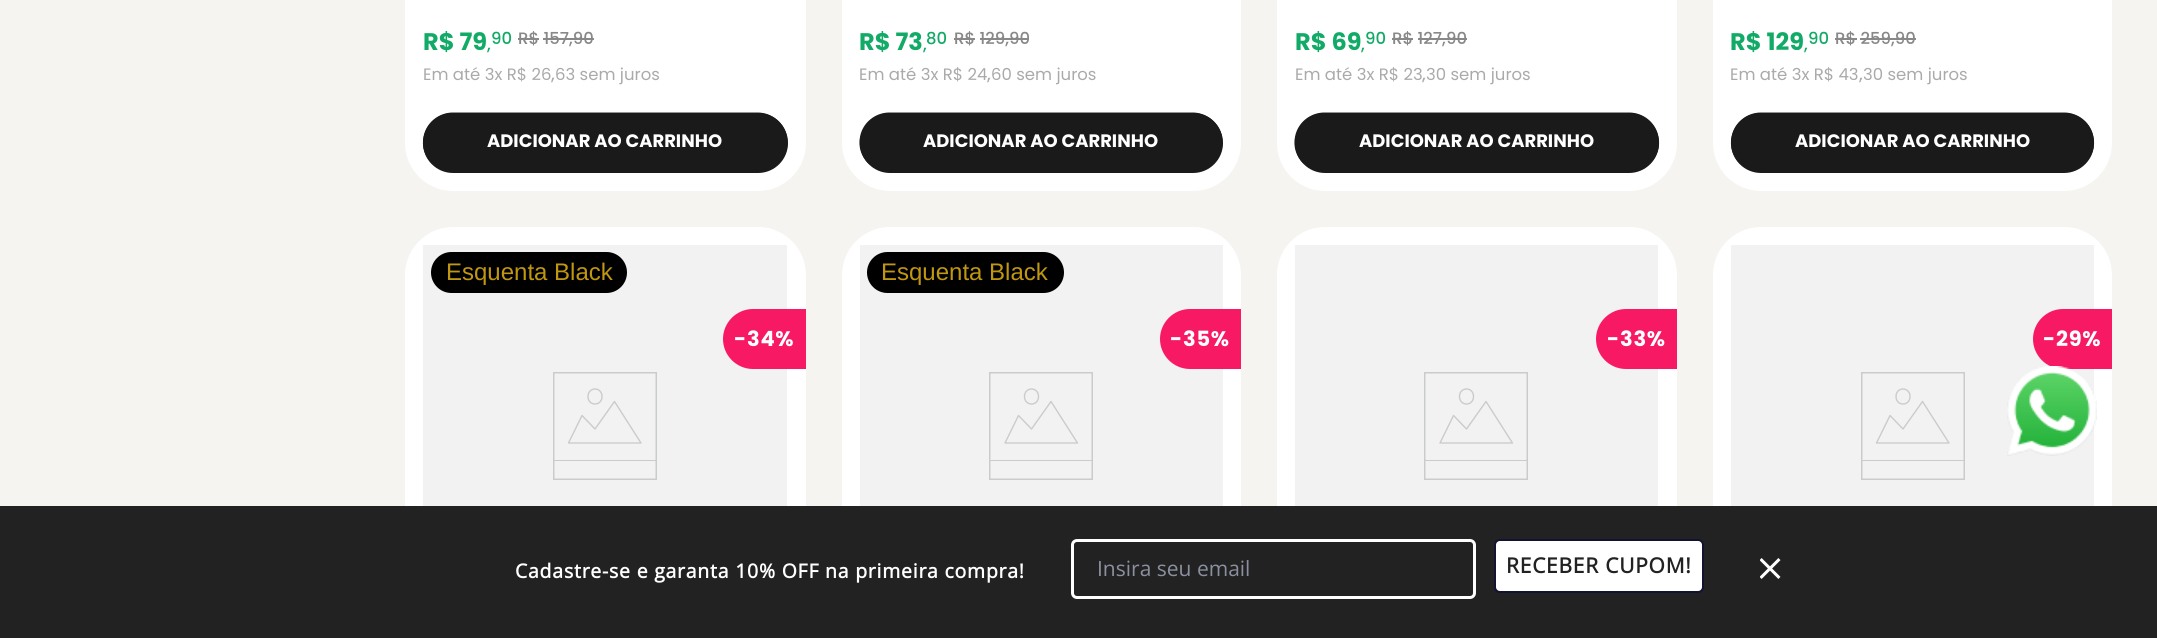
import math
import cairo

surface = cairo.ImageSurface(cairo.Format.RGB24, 2157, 638)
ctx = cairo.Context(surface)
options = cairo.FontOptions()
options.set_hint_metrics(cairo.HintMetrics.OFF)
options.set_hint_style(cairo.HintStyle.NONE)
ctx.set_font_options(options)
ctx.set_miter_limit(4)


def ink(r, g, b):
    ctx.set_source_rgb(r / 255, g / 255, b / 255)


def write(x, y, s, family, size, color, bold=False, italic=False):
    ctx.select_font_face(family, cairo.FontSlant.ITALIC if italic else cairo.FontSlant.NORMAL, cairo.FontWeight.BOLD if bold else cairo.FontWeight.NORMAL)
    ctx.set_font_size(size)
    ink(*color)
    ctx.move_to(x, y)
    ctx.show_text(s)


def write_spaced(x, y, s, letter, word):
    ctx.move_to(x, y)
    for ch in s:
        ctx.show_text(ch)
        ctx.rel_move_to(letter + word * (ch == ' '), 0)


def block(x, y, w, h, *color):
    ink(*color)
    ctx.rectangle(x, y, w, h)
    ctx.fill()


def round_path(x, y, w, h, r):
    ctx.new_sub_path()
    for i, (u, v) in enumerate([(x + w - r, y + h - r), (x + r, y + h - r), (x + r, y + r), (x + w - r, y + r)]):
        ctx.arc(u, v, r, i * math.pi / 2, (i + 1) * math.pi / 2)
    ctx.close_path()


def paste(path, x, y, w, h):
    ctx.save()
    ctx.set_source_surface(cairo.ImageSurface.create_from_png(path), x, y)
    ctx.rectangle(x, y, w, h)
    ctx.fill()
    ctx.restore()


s1 = dict(family="Poppins", size=24, color=(17, 170, 102), bold=True)
s2 = dict(family="Poppins Medium", size=16.5, color=(17, 170, 102))
s3 = dict(family="Poppins Medium", size=16.5, color=(136, 136, 136))
s4 = dict(family="Poppins", size=16.5, color=(170, 170, 170))
s5 = dict(family="Poppins Medium", size=16.5, color=(170, 170, 170))
s6 = dict(family="Poppins", size=18, color=(255, 255, 255), bold=True)
s7 = dict(family="Liberation Sans", size=24, color=(192, 151, 17))
s8 = dict(family="Open Sans", size=21, color=(139, 144, 160))

ink(246, 244, 241)
ctx.paint()
ink(255, 255, 255)
round_path(405, -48, 401, 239, 48)
ctx.fill()
write(423, 50, "R$ 79", **s1)
write(491, 44, "90", **s2)
write(487, 50, ",", **s2)
write(518, 44, "R$ 157,90", **s3)
block(518, 38, 21, 2, 136, 136, 136)
block(543, 38, 51, 2, 136, 136, 136)
write(423, 80, "Em até 3x R$ 26", **s4)
write(551, 80, ",", **s5)
write(555, 80, "63 sem juros", **s4)
ink(26, 26, 26)
round_path(423, 113, 365, 60, 30)
ctx.fill()
ctx.new_path()
ctx.move_to(433, 162.5)
ctx.curve_to(426, 156, 423, 146, 425, 137)
ctx.curve_to(427.5, 123.5, 439.5, 114, 453, 114)
ctx.line_to(757.5, 114)
ctx.curve_to(771, 114, 783, 123.5, 785.5, 137)
ctx.curve_to(787.5, 146, 784.5, 156, 777.5, 162.5)
ctx.set_line_width(3)
ctx.stroke()
write(487, 147, "ADICIONAR AO CARRINHO", **s6)
round_path(842, -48, 399, 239, 48)
ctx.fill()
write(859, 50, "R$ 73", **s1)
write(926, 44, "80", **s2)
write(923, 50, ",", **s2)
write(954, 44, "R$ 129,90", **s3)
block(954, 38, 21, 2, 136, 136, 136)
block(980, 38, 49, 2, 136, 136, 136)
write(859, 80, "Em até 3x R$ 24", **s4)
write(987, 80, ",", **s5)
write(991, 80, "60 sem juros", **s4)
ink(26, 26, 26)
round_path(860, 113, 363, 60, 30)
ctx.fill()
ctx.new_path()
ctx.move_to(869.5, 162.5)
ctx.curve_to(862.5, 156, 859.5, 146, 861.5, 137)
ctx.curve_to(864, 123.5, 876, 114, 889.5, 114)
ctx.line_to(1192.5, 114)
ctx.curve_to(1206, 114, 1218, 123.5, 1220.5, 137)
ctx.curve_to(1222.5, 146, 1219.5, 156, 1212.5, 162.5)
ctx.stroke()
write(923, 147, "ADICIONAR AO CARRINHO", **s6)
round_path(1277, -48, 400, 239, 48)
ctx.fill()
write(1295, 50, "R$ 69", **s1)
write(1365, 44, "90", **s2)
write(1361, 50, ",", **s2)
write(1392, 44, "R$ 127,", **s3)
block(1392, 38, 21, 2, 136, 136, 136)
block(1418, 38, 29, 2, 136, 136, 136)
block(1446, 38, 21, 2, 136, 136, 136)
write(1446, 44, "90", **s3)
write(1295, 80, "Em até 3x R$ 23", **s4)
write(1422, 80, ",", **s5)
write(1426, 80, "30 sem juros", **s4)
ink(26, 26, 26)
round_path(1295, 113, 364, 60, 30)
ctx.fill()
ctx.new_path()
ctx.move_to(1304.5, 162.5)
ctx.curve_to(1297.5, 156, 1294.5, 146, 1296.5, 137)
ctx.curve_to(1299, 123.5, 1311, 114, 1324.5, 114)
ctx.line_to(1629, 114)
ctx.curve_to(1642.5, 114, 1654.5, 123.5, 1657, 137)
ctx.curve_to(1659, 146, 1656, 156, 1649, 162.5)
ctx.stroke()
write(1359, 147, "ADICIONAR AO CARRINHO", **s6)
round_path(1713, -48, 399, 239, 48)
ctx.fill()
write(1730, 50, "R$ 129", **s1)
write(1808, 44, "90", **s2)
write(1804, 50, ",", **s2)
write(1835, 44, "R$ 259,90", **s3)
block(1835, 38, 22, 2, 136, 136, 136)
block(1860, 38, 56, 2, 136, 136, 136)
write(1730, 80, "Em até 3x R$ 43", **s4)
write(1859, 80, ",", **s5)
write(1863, 80, "30 sem juros", **s4)
ink(26, 26, 26)
round_path(1731, 113, 363, 60, 30)
ctx.fill()
ctx.new_path()
ctx.move_to(1741, 162.5)
ctx.curve_to(1734, 156, 1731, 146, 1733, 137)
ctx.curve_to(1735.5, 123.5, 1747.5, 114, 1761, 114)
ctx.line_to(2064, 114)
ctx.curve_to(2077.5, 114, 2089.5, 123.5, 2092, 137)
ctx.curve_to(2094, 146, 2091, 156, 2084, 162.5)
ctx.stroke()
write(1795, 147, "ADICIONAR AO CARRINHO", **s6)
round_path(405, 227, 401, 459, 48)
ctx.fill()
block(423, 245, 364, 261, 242, 242, 242)
ctx.rectangle(553.75, 372.75, 102.5, 106.5)
ink(202, 203, 204)
ctx.set_line_width(1.5)
ctx.stroke()
ctx.new_path()
ctx.move_to(568.5, 443)
ctx.line_to(582, 415.5)
ctx.line_to(595, 429)
ctx.line_to(614.5, 401.5)
ctx.line_to(641, 443)
ctx.close_path()
ctx.set_line_width(1.4)
ctx.set_line_cap(cairo.LineCap.ROUND)
ctx.set_line_join(cairo.LineJoin.ROUND)
ctx.stroke()
ctx.new_path()
ctx.move_to(602, 396.5)
ctx.curve_to(602, 406.5, 588, 406.5, 588, 396.5)
ctx.curve_to(588, 386.5, 602, 386.5, 602, 396.5)
ctx.close_path()
ctx.set_line_cap(cairo.LineCap.BUTT)
ctx.set_line_join(cairo.LineJoin.MITER)
ctx.stroke()
block(554, 460, 102, 1, 202, 203, 204)
ink(0, 0, 0)
round_path(431, 252, 196, 41, 20.5)
ctx.fill()
write(446, 280, "Esquenta Black", **s7)
ink(247, 25, 99)
ctx.new_path()
ctx.move_to(753, 309)
ctx.line_to(806, 309)
ctx.line_to(806, 369)
ctx.line_to(753, 369)
ctx.curve_to(736.5, 369, 723, 355.5, 723, 339)
ctx.curve_to(723, 322.5, 736.5, 309, 753, 309)
ctx.close_path()
ctx.fill()
ctx.select_font_face("Poppins", cairo.FontSlant.NORMAL, cairo.FontWeight.BOLD)
ctx.set_font_size(21)
ink(255, 255, 255)
write_spaced(734, 346, "-34%", 0.75, 0)
round_path(842, 227, 399, 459, 48)
ctx.fill()
block(860, 245, 363, 261, 242, 242, 242)
ctx.rectangle(989.75, 372.75, 102.5, 106.5)
ink(202, 203, 204)
ctx.set_line_width(1.5)
ctx.stroke()
ctx.new_path()
ctx.move_to(1005, 443)
ctx.line_to(1018.5, 415.5)
ctx.line_to(1031.5, 429)
ctx.line_to(1051, 401.5)
ctx.line_to(1077.5, 443)
ctx.close_path()
ctx.set_line_width(1.4)
ctx.set_line_cap(cairo.LineCap.ROUND)
ctx.set_line_join(cairo.LineJoin.ROUND)
ctx.stroke()
ctx.new_path()
ctx.move_to(1038.5, 396.5)
ctx.curve_to(1038.5, 406.5, 1024.5, 406.5, 1024.5, 396.5)
ctx.curve_to(1024.5, 386.5, 1038.5, 386.5, 1038.5, 396.5)
ctx.close_path()
ctx.set_line_cap(cairo.LineCap.BUTT)
ctx.set_line_join(cairo.LineJoin.MITER)
ctx.stroke()
block(990, 460, 103, 1, 202, 203, 204)
ink(0, 0, 0)
round_path(867, 252, 197, 41, 20.5)
ctx.fill()
write(881, 280, "Esquenta Black", **s7)
ink(247, 25, 99)
ctx.new_path()
ctx.move_to(1190, 309)
ctx.line_to(1241, 309)
ctx.line_to(1241, 369)
ctx.line_to(1190, 369)
ctx.curve_to(1173.5, 369, 1160, 355.5, 1160, 339)
ctx.curve_to(1160, 322.5, 1173.5, 309, 1190, 309)
ctx.close_path()
ctx.fill()
ctx.select_font_face("Poppins", cairo.FontSlant.NORMAL, cairo.FontWeight.BOLD)
ctx.set_font_size(21)
ink(255, 255, 255)
write_spaced(1170, 346, "-35%", 0.75, 0)
round_path(1277, 227, 400, 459, 48)
ctx.fill()
block(1295, 245, 363, 261, 242, 242, 242)
ctx.rectangle(1424.75, 372.75, 102.5, 106.5)
ink(202, 203, 204)
ctx.set_line_width(1.5)
ctx.stroke()
ctx.new_path()
ctx.move_to(1440, 443)
ctx.line_to(1453.5, 415.5)
ctx.line_to(1466.5, 429)
ctx.line_to(1486, 401.5)
ctx.line_to(1512.5, 443)
ctx.close_path()
ctx.set_line_width(1.4)
ctx.set_line_cap(cairo.LineCap.ROUND)
ctx.set_line_join(cairo.LineJoin.ROUND)
ctx.stroke()
ctx.new_path()
ctx.move_to(1473.5, 396.5)
ctx.curve_to(1473.5, 406.5, 1459.5, 406.5, 1459.5, 396.5)
ctx.curve_to(1459.5, 386.5, 1473.5, 386.5, 1473.5, 396.5)
ctx.close_path()
ctx.set_line_cap(cairo.LineCap.BUTT)
ctx.set_line_join(cairo.LineJoin.MITER)
ctx.stroke()
block(1425, 460, 103, 1, 202, 203, 204)
ink(247, 25, 99)
ctx.new_path()
ctx.move_to(1626, 309)
ctx.line_to(1677, 309)
ctx.line_to(1677, 369)
ctx.line_to(1626, 369)
ctx.curve_to(1609.5, 369, 1596, 355.5, 1596, 339)
ctx.curve_to(1596, 322.5, 1609.5, 309, 1626, 309)
ctx.close_path()
ctx.fill()
ink(255, 255, 255)
write_spaced(1607, 346, "-33%", 0.75, 0)
round_path(1713, 227, 399, 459, 48)
ctx.fill()
block(1731, 245, 363, 261, 242, 242, 242)
ctx.rectangle(1861.75, 372.75, 102.5, 106.5)
ink(202, 203, 204)
ctx.set_line_width(1.5)
ctx.stroke()
ctx.new_path()
ctx.move_to(1876.5, 443)
ctx.line_to(1890, 415.5)
ctx.line_to(1903, 429)
ctx.line_to(1922.5, 401.5)
ctx.line_to(1949, 443)
ctx.close_path()
ctx.set_line_width(1.4)
ctx.set_line_cap(cairo.LineCap.ROUND)
ctx.set_line_join(cairo.LineJoin.ROUND)
ctx.stroke()
ctx.new_path()
ctx.move_to(1910, 396.5)
ctx.curve_to(1910, 406.5, 1896, 406.5, 1896, 396.5)
ctx.curve_to(1896, 386.5, 1910, 386.5, 1910, 396.5)
ctx.close_path()
ctx.set_line_cap(cairo.LineCap.BUTT)
ctx.set_line_join(cairo.LineJoin.MITER)
ctx.stroke()
block(1862, 460, 102, 1, 202, 203, 204)
ink(247, 25, 99)
ctx.new_path()
ctx.move_to(2063, 309)
ctx.line_to(2112, 309)
ctx.line_to(2112, 369)
ctx.line_to(2063, 369)
ctx.curve_to(2046.5, 369, 2033, 355.5, 2033, 339)
ctx.curve_to(2033, 322.5, 2046.5, 309, 2063, 309)
ctx.close_path()
ctx.fill()
ink(255, 255, 255)
write_spaced(2043, 346, "-29%", 0.75, 0)
paste("pic1.png", 2007, 366, 90, 90)
block(0, 506, 2157, 132, 34, 34, 34)
ctx.select_font_face("Open Sans", cairo.FontSlant.NORMAL, cairo.FontWeight.BOLD)
ctx.set_font_size(19.5)
ink(255, 255, 255)
write_spaced(515, 578, "Cadastre-se e garanta 10% OFF na primeira compra!", 0.75, 0)
round_path(1072.5, 540.5, 402, 57, 4.5)
ctx.set_line_width(3)
ctx.stroke()
write(1097, 576, "Insira seu email", **s8)
ink(255, 255, 255)
round_path(1495, 540, 208, 52, 5)
ctx.fill_preserve()
ink(18, 18, 50)
ctx.set_line_width(2)
ctx.stroke()
ctx.select_font_face("Open Sans", cairo.FontSlant.NORMAL, cairo.FontWeight.BOLD)
ink(34, 34, 34)
write_spaced(1506, 573, "RECEBER CUPOM!", 0.75, 0)
paste("pic2.png", 1760, 558, 21, 21)
surface.write_to_png("screenshot.png")
